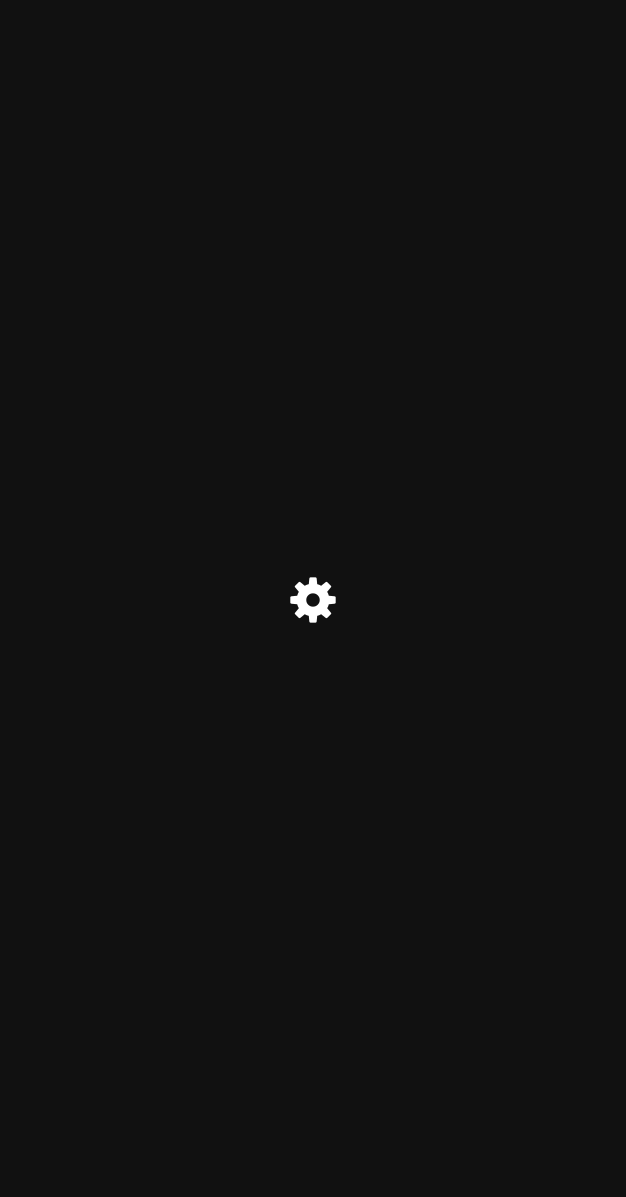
import math
import cairo

surface = cairo.ImageSurface(cairo.Format.RGB24, 626, 1197)
ctx = cairo.Context(surface)
options = cairo.FontOptions()
options.set_hint_metrics(cairo.HintMetrics.OFF)
options.set_hint_style(cairo.HintStyle.NONE)
ctx.set_font_options(options)
ctx.set_miter_limit(4)


def ink(r, g, b):
    ctx.set_source_rgb(r / 255, g / 255, b / 255)


def paste(path, x, y, w, h):
    ctx.save()
    ctx.set_source_surface(cairo.ImageSurface.create_from_png(path), x, y)
    ctx.rectangle(x, y, w, h)
    ctx.fill()
    ctx.restore()


ink(17, 17, 17)
ctx.paint()
paste("pic1.png", 290, 577, 46, 46)
surface.write_to_png("screenshot.png")
